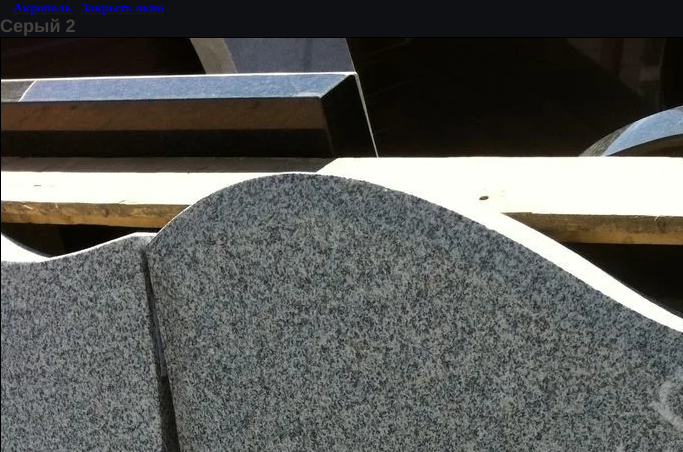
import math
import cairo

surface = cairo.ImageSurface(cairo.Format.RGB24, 683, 452)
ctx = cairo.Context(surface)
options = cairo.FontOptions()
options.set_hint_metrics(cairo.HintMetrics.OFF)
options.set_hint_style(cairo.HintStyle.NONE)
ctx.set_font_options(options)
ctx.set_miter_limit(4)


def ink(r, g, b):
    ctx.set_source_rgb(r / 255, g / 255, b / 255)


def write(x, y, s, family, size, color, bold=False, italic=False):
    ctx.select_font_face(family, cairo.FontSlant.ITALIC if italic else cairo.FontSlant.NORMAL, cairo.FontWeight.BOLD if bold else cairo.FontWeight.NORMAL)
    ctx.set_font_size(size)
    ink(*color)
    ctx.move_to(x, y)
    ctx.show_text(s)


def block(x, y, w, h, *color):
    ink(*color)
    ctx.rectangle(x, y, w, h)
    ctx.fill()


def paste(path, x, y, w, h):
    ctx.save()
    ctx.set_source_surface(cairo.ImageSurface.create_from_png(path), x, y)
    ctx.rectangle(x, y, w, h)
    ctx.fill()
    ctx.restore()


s1 = dict(family="Liberation Serif", size=13, color=(0, 0, 204), bold=True)
s2 = dict(family="Liberation Sans", size=18, color=(68, 65, 62), bold=True)

ink(15, 16, 19)
ctx.paint()
block(13, 13, 59, 1, 0, 0, 204)
write(13, 12, "Акрополь", **s1)
block(81, 13, 83, 1, 0, 0, 204)
write(81, 12, "Закрыть окно", **s1)
write(0, 32, "Серый 2", **s2)
ctx.rectangle(0.5, 37.5, 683, 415)
ink(0, 0, 0)
ctx.set_line_width(1)
ctx.stroke()
paste("pic1.png", 1, 38, 682, 414)
surface.write_to_png("screenshot.png")
